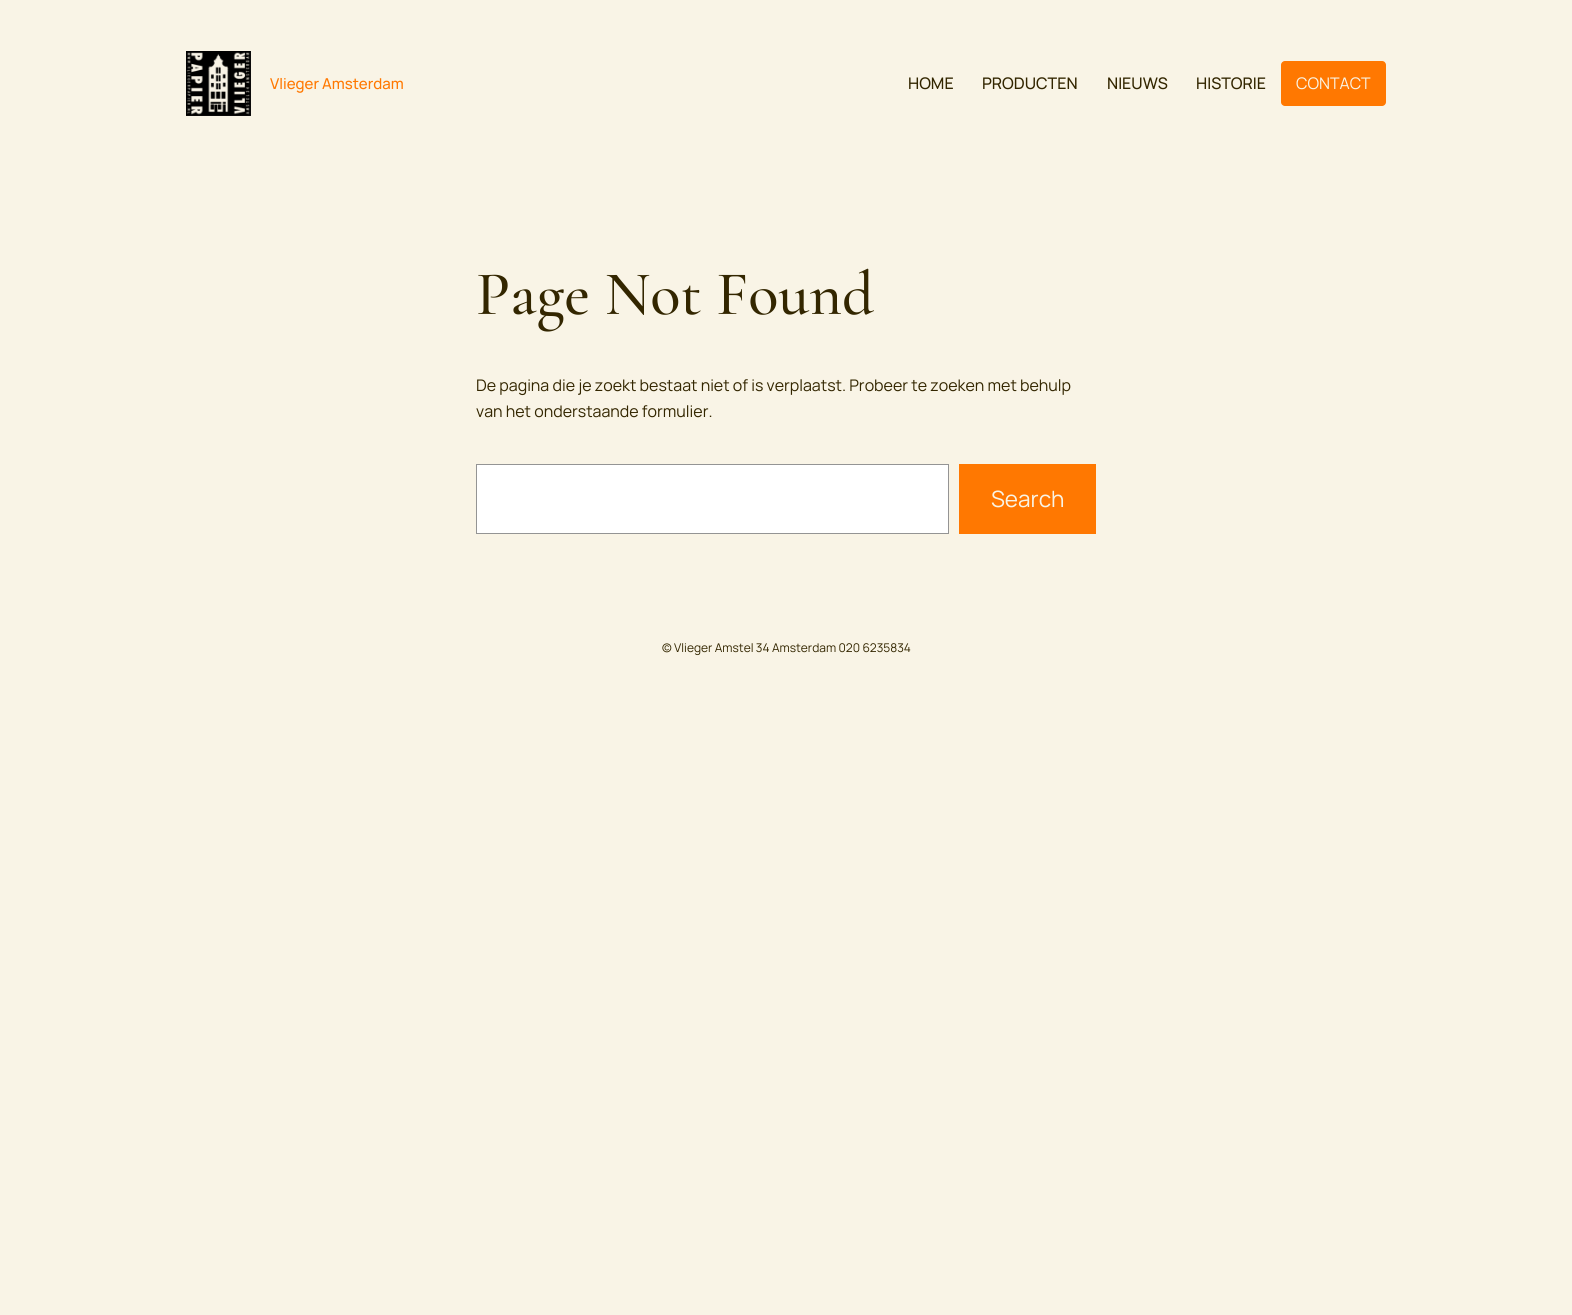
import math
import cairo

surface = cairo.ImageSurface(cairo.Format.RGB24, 1572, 1315)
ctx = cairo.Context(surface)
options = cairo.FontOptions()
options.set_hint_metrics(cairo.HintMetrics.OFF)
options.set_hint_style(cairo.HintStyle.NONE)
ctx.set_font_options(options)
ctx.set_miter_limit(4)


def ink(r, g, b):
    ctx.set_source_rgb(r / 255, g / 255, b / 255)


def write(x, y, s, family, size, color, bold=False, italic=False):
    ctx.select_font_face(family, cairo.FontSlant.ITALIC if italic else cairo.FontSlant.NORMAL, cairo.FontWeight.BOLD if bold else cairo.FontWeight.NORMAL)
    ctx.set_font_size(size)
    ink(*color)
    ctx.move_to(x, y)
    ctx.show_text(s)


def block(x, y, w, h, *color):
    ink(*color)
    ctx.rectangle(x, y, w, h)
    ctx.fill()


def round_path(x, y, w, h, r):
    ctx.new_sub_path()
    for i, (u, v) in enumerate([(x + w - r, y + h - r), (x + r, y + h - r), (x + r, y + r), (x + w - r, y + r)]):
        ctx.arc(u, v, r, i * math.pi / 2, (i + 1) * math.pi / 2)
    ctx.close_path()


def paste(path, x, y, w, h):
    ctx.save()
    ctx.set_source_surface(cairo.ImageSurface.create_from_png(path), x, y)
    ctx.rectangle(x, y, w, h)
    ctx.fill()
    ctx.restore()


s1 = dict(family="Manrope Medium", size=15, color=(255, 120, 1))
s2 = dict(family="Manrope Medium", size=16, color=(51, 38, 0))
s3 = dict(family="Manrope", size=16, color=(249, 244, 230))
s4 = dict(family="Cormorant Garamond Medium", size=62.5, color=(51, 38, 0))
s5 = dict(family="Manrope", size=16, color=(51, 38, 0))
s6 = dict(family="Manrope", size=22.5, color=(249, 244, 230))
s7 = dict(family="Manrope", size=12, color=(51, 38, 0))

ink(249, 244, 230)
ctx.paint()
paste("pic1.png", 186, 51, 65, 65)
write(270, 89, "Vlieger Amsterdam", **s1)
write(908, 89, "HOME", **s2)
write(982, 89, "PRODUCTEN", **s2)
write(1107, 89, "NIEUWS", **s2)
write(1196, 89, "HISTORIE", **s2)
ink(255, 120, 1)
round_path(1281, 61, 105, 45, 4)
ctx.fill()
write(1296, 89, "CONTACT", **s3)
write(476, 314, "Page Not Found", **s4)
write(476, 391, "De pagina die je zoekt bestaat niet of is verplaatst. Probeer te zoeken met behulp", **s5)
write(476, 417, "van het onderstaande formulier.", **s5)
ink(255, 255, 255)
ctx.rectangle(476.5, 464.5, 472, 69)
ctx.fill_preserve()
ink(148, 148, 148)
ctx.set_line_width(1)
ctx.stroke()
block(959, 464, 137, 70, 255, 120, 1)
write(991, 507, "Search", **s6)
write(662, 652, "© Vlieger Amstel 34 Amsterdam 020 6235834", **s7)
surface.write_to_png("screenshot.png")
